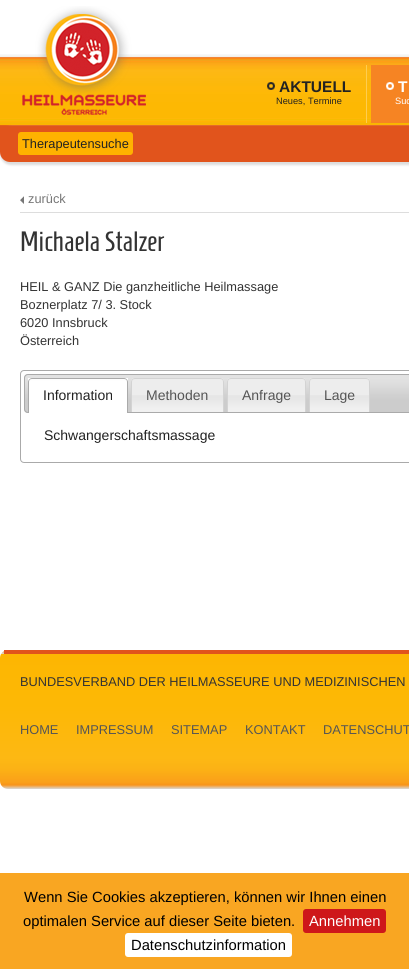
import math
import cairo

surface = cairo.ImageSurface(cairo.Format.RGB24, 409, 969)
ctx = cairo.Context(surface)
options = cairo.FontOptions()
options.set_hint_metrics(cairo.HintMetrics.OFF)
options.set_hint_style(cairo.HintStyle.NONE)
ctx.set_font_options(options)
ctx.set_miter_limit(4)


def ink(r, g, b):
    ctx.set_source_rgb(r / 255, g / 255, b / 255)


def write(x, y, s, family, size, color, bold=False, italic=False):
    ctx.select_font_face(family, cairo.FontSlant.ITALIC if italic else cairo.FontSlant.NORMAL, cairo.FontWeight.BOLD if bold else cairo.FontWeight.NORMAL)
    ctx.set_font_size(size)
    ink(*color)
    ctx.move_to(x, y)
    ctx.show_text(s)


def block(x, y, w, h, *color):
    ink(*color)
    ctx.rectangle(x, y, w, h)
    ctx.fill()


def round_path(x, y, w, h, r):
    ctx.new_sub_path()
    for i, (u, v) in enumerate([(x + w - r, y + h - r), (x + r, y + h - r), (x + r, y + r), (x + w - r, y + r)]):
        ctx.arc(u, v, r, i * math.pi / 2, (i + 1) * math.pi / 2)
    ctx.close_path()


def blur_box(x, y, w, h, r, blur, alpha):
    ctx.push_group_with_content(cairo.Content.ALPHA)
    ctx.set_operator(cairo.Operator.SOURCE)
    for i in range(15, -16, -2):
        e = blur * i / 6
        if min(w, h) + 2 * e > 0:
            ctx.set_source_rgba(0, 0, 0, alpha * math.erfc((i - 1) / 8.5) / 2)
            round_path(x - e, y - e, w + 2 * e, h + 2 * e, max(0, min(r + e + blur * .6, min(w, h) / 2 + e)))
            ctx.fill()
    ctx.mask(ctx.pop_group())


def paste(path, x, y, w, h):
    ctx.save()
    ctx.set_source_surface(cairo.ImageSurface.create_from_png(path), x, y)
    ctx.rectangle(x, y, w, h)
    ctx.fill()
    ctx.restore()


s1 = dict(family="Liberation Sans", size=15.5, color=(34, 34, 34), bold=True)
s2 = dict(family="Liberation Sans", size=9.25, color=(34, 34, 34))
s3 = dict(family="Liberation Sans", size=15.5, color=(255, 255, 255), bold=True)
s4 = dict(family="Liberation Sans", size=9.25, color=(255, 255, 255))
s5 = dict(family="Liberation Sans", size=12.8, color=(34, 34, 34))
s6 = dict(family="Liberation Sans", size=12.8, color=(119, 119, 119))
s7 = dict(family="Homenaje", size=28, color=(51, 51, 51))
s8 = dict(family="Liberation Sans", size=12.8, color=(51, 51, 51))
s9 = dict(family="Liberation Sans", size=14, color=(34, 34, 34))
s10 = dict(family="Liberation Sans", size=14, color=(85, 85, 85))
s11 = dict(family="Liberation Sans", size=12.8, color=(85, 85, 85))
s12 = dict(family="Liberation Sans", size=14.75, color=(0, 0, 0))
s13 = dict(family="Liberation Sans", size=14.75, color=(255, 255, 255))

ink(255, 255, 255)
ctx.paint()
paste("pic1.png", 0, 54, 409, 100)
paste("pic2.png", 22, 6, 124, 109)
block(366, 65, 1, 58, 254, 205, 80)
paste("pic3.png", 267, 82, 8, 8)
write(279, 92, "AKTUELL", **s1)
write(276, 104, "Neues, Termine", **s2)
block(371, 65, 38, 58, 246, 132, 35)
paste("pic4.png", 386, 82, 8, 8)
write(398, 92, "T", **s3)
write(395, 104, "Suc", **s4)
ink(221, 221, 221)
blur_box(0, 127, 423, 38, 11, 1, 1)
ink(225, 84, 28)
ctx.new_path()
ctx.move_to(0, 126)
ctx.line_to(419, 126)
ctx.line_to(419, 152)
ctx.curve_to(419, 157.5, 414.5, 162, 409, 162)
ctx.line_to(10, 162)
ctx.curve_to(4.5, 162, 0, 157.5, 0, 152)
ctx.close_path()
ctx.fill()
ink(255, 178, 0)
round_path(18, 132, 115, 23, 3)
ctx.fill()
write(22, 148, "Therapeutensuche", **s5)
block(20, 212, 389, 1, 221, 221, 221)
paste("pic5.png", 20, 196, 4, 8)
write(28, 203, "zurück", **s6)
write(20, 251, "Michaela Stalzer", **s7)
write(20, 291, "HEIL & GANZ Die ganzheitliche Heilmassage", **s8)
write(20, 309, "Boznerplatz 7/ 3. Stock", **s8)
write(20, 327, "6020 Innsbruck", **s8)
write(20, 345, "Österreich", **s8)
round_path(20.5, 370.5, 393, 92, 3.5)
ink(170, 170, 170)
ctx.set_line_width(1)
ctx.stroke()
paste("pic6.png", 24, 374, 385, 39)
round_path(24.5, 374.5, 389, 38, 3.5)
ctx.stroke()
block(28, 381, 100, 32, 255, 255, 255)
block(28, 378, 100, 3, 254, 254, 254)
ink(170, 170, 170)
ctx.set_fill_rule(cairo.FillRule.EVEN_ODD)
ctx.new_path()
ctx.move_to(32, 378)
ctx.line_to(124, 378)
ctx.curve_to(126, 378, 128, 380, 128, 382)
ctx.line_to(128, 413)
ctx.line_to(28, 413)
ctx.line_to(28, 382)
ctx.curve_to(28, 380, 30, 378, 32, 378)
ctx.close_path()
ctx.move_to(32, 379)
ctx.line_to(124, 379)
ctx.curve_to(126, 379, 127, 380, 127, 382)
ctx.line_to(127, 413)
ctx.line_to(29, 413)
ctx.line_to(29, 382)
ctx.curve_to(29, 380, 30, 379, 32, 379)
ctx.close_path()
ctx.fill()
write(43, 400, "Information", **s9)
paste("pic7.png", 131, 378, 93, 34)
ink(211, 211, 211)
ctx.new_path()
ctx.move_to(135, 378)
ctx.line_to(220, 378)
ctx.curve_to(222, 378, 224, 380, 224, 382)
ctx.line_to(224, 412)
ctx.line_to(131, 412)
ctx.line_to(131, 382)
ctx.curve_to(131, 380, 133, 378, 135, 378)
ctx.close_path()
ctx.move_to(135, 379)
ctx.line_to(220, 379)
ctx.curve_to(222, 379, 223, 380, 223, 382)
ctx.line_to(223, 412)
ctx.line_to(132, 412)
ctx.line_to(132, 382)
ctx.curve_to(132, 380, 133, 379, 135, 379)
ctx.close_path()
ctx.fill()
write(146, 400, "Methoden", **s10)
paste("pic8.png", 227, 378, 79, 34)
ink(211, 211, 211)
ctx.new_path()
ctx.move_to(231, 378)
ctx.line_to(302, 378)
ctx.curve_to(304, 378, 306, 380, 306, 382)
ctx.line_to(306, 412)
ctx.line_to(227, 412)
ctx.line_to(227, 382)
ctx.curve_to(227, 380, 229, 378, 231, 378)
ctx.close_path()
ctx.move_to(231, 379)
ctx.line_to(302, 379)
ctx.curve_to(304, 379, 305, 380, 305, 382)
ctx.line_to(305, 412)
ctx.line_to(228, 412)
ctx.line_to(228, 382)
ctx.curve_to(228, 380, 229, 379, 231, 379)
ctx.close_path()
ctx.fill()
write(242, 400, "Anfrage", **s10)
paste("pic9.png", 309, 378, 61, 34)
ink(211, 211, 211)
ctx.new_path()
ctx.move_to(313, 378)
ctx.line_to(366, 378)
ctx.curve_to(368, 378, 370, 380, 370, 382)
ctx.line_to(370, 412)
ctx.line_to(309, 412)
ctx.line_to(309, 382)
ctx.curve_to(309, 380, 311, 378, 313, 378)
ctx.close_path()
ctx.move_to(313, 379)
ctx.line_to(366, 379)
ctx.curve_to(368, 379, 369, 380, 369, 382)
ctx.line_to(369, 412)
ctx.line_to(310, 412)
ctx.line_to(310, 382)
ctx.curve_to(310, 380, 311, 379, 313, 379)
ctx.close_path()
ctx.fill()
write(324, 400, "Lage", **s10)
write(44, 440, "Schwangerschaftsmassage", **s9)
ctx.save()
ctx.set_fill_rule(cairo.FillRule.WINDING)
round_path(0, 650, 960, 139, 8)
ctx.clip()
gradient = cairo.LinearGradient(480, 519, 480, 654)
gradient.add_color_stop_rgba(0, 0.992, 0.714, 0.008, 1)
gradient.add_color_stop_rgba(0.38, 0.992, 0.722, 0.02, 1)
gradient.add_color_stop_rgba(0.77, 0.992, 0.722, 0.075, 1)
gradient.add_color_stop_rgba(0.85, 0.988, 0.698, 0.082, 1)
gradient.add_color_stop_rgba(0.92, 0.984, 0.647, 0.094, 1)
gradient.add_color_stop_rgba(0.95, 0.98, 0.627, 0.098, 1)
gradient.add_color_stop_rgba(0.97, 0.973, 0.58, 0.102, 1)
gradient.add_color_stop_rgba(1, 0.847, 0.847, 0.847, 1)
ctx.set_source(gradient)
ctx.rectangle(0, 651, 4, 3)
ctx.fill()
gradient = cairo.LinearGradient(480, 654, 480, 789)
gradient.add_color_stop_rgba(0, 0.992, 0.714, 0.008, 1)
gradient.add_color_stop_rgba(0.38, 0.992, 0.722, 0.02, 1)
gradient.add_color_stop_rgba(0.77, 0.992, 0.722, 0.075, 1)
gradient.add_color_stop_rgba(0.85, 0.988, 0.698, 0.082, 1)
gradient.add_color_stop_rgba(0.92, 0.984, 0.647, 0.094, 1)
gradient.add_color_stop_rgba(0.95, 0.98, 0.627, 0.098, 1)
gradient.add_color_stop_rgba(0.97, 0.973, 0.58, 0.102, 1)
gradient.add_color_stop_rgba(1, 0.847, 0.847, 0.847, 1)
ctx.set_source(gradient)
ctx.new_path()
ctx.move_to(0, 654)
ctx.line_to(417, 654)
ctx.line_to(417, 781)
ctx.curve_to(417, 785.5, 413.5, 789, 409, 789)
ctx.line_to(8, 789)
ctx.curve_to(3.5, 789, 0, 785.5, 0, 781)
ctx.close_path()
ctx.fill()
ctx.restore()
block(4, 650, 405, 4, 225, 84, 28)
write(20, 686, "BUNDESVERBAND DER HEILMASSEURE UND MEDIZINISCHEN", **s8)
write(20, 734, "HOME", **s11)
write(76, 734, "IMPRESSUM", **s11)
write(171, 734, "SITEMAP", **s11)
write(245, 734, "KONTAKT", **s11)
write(323, 734, "DATENSCHUT", **s11)
block(0, 873, 409, 96, 249, 166, 34)
write(24, 902, "Wenn Sie Cookies akzeptieren, können wir Ihnen einen", **s12)
write(23, 926, "optimalen Service auf dieser Seite bieten.", **s12)
ink(206, 23, 26)
round_path(303, 909, 83, 24, 3)
ctx.fill()
write(309, 926, "Annehmen", **s13)
round_path(125, 933, 167, 24, 3)
ctx.fill()
write(131, 950, "Datenschutzinformation", **s12)
surface.write_to_png("screenshot.png")
